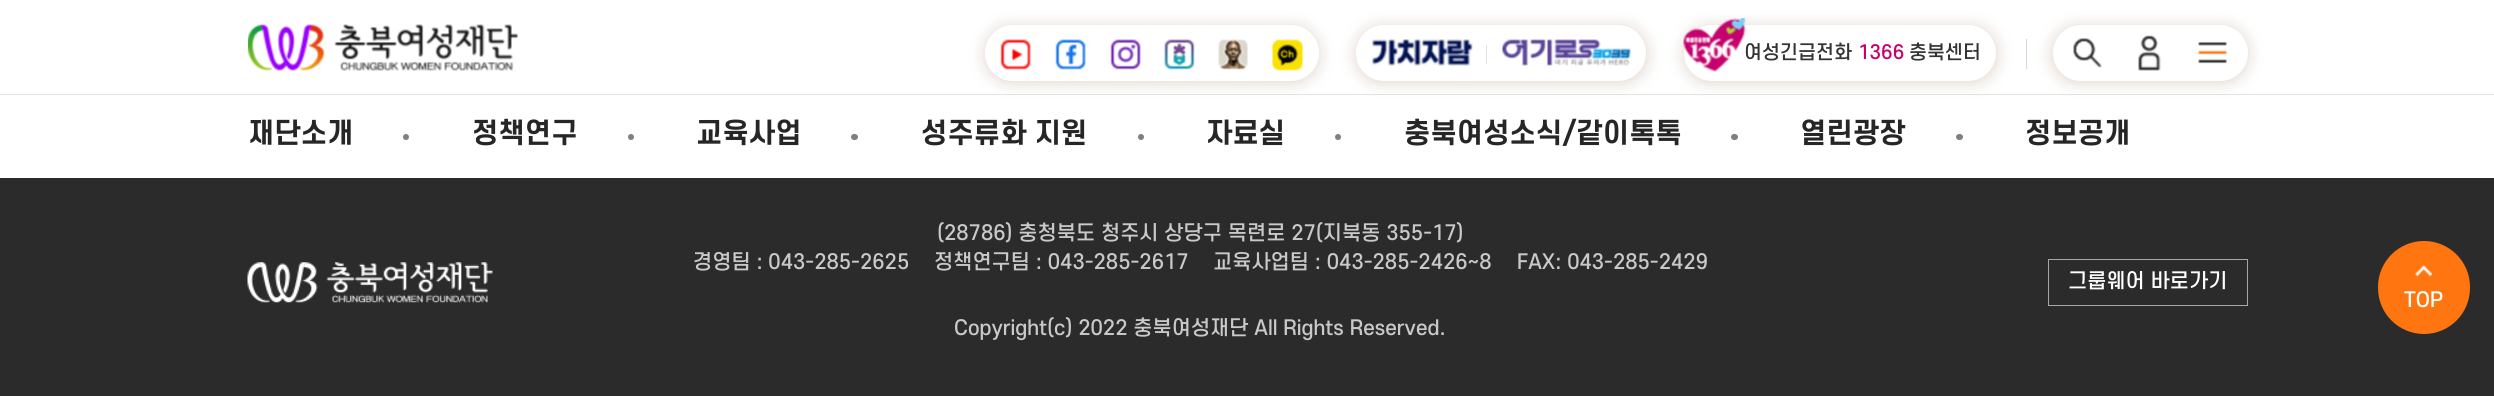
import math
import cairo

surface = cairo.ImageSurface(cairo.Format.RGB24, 2494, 396)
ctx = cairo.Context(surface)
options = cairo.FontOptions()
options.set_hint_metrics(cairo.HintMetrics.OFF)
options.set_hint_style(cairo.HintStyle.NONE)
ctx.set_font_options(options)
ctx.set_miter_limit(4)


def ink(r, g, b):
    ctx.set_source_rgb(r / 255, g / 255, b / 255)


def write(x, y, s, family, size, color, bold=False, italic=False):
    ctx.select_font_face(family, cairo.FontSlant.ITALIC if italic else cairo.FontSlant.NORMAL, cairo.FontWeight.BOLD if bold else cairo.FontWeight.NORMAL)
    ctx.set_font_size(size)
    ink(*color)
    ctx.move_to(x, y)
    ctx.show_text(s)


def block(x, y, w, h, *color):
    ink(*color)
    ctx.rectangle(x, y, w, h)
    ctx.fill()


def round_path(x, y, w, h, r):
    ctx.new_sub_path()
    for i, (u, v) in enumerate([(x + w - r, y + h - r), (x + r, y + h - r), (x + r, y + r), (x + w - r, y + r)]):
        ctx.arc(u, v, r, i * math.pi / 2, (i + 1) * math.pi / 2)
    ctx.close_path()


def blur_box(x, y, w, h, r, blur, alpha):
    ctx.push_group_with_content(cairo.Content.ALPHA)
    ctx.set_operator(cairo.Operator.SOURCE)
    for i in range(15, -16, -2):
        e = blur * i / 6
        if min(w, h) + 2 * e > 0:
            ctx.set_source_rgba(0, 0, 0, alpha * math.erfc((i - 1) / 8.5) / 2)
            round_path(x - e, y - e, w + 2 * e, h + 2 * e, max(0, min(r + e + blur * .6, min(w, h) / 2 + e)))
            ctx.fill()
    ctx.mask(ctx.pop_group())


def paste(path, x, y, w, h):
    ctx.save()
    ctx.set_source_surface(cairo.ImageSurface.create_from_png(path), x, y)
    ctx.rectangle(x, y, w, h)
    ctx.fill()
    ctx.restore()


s1 = dict(family="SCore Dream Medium", size=18.75, color=(51, 51, 51))
s2 = dict(family="SCore Dream Medium", size=18.75, color=(198, 0, 111))
s3 = dict(family="SCore Dream", size=27.5, color=(38, 38, 38), bold=True)
s4 = dict(family="SCore Dream Medium", size=20, color=(255, 255, 255))
s5 = dict(family="SCore Dream Medium", size=20, color=(202, 201, 201))

ink(43, 43, 43)
ctx.paint()
block(0, 0, 2494, 178, 255, 255, 255)
block(0, 94, 2494, 1, 228, 228, 228)
paste("pic1.png", 248, 24, 270, 47)
ink(123, 75, 42)
blur_box(984, 25, 336, 59, 29.5, 7.5, 0.21)
ink(255, 255, 255)
round_path(985, 25, 334, 56, 28)
ctx.fill()
paste("pic2.png", 1000, 39, 31, 31)
paste("pic3.png", 1055, 39, 31, 31)
paste("pic4.png", 1110, 39, 31, 31)
paste("pic5.png", 1164, 39, 31, 31)
paste("pic6.png", 1218, 39, 30, 31)
paste("pic7.png", 1272, 39, 31, 32)
ink(123, 75, 42)
blur_box(1355, 25, 293, 59, 29.5, 7.5, 0.21)
ink(255, 255, 255)
round_path(1356, 25, 290, 56, 28)
ctx.fill()
paste("pic8.png", 1372, 39, 101, 27)
block(1486, 45, 1, 19, 225, 225, 225)
paste("pic9.png", 1502, 39, 129, 27)
ink(123, 75, 42)
blur_box(1683, 25, 315, 59, 29.5, 7.5, 0.21)
ink(255, 255, 255)
round_path(1684, 25, 312, 56, 28)
ctx.fill()
write(1744, 59, "여성긴급전화", **s1)
paste("pic10.png", 1683, 18, 63, 54)
write(1858, 59, "1366", **s2)
write(1909, 59, "충북센터", **s1)
block(2026, 39, 1, 30, 222, 211, 203)
ink(123, 75, 42)
blur_box(2051, 25, 198, 59, 29.5, 7.5, 0.21)
ink(255, 255, 255)
round_path(2053, 25, 195, 56, 28)
ctx.fill()
paste("pic11.png", 2073, 38, 29, 30)
paste("pic12.png", 2138, 35, 23, 36)
paste("pic13.png", 2198, 41, 29, 23)
write(248, 143, "재단소개", **s3)
ink(127, 127, 127)
ctx.new_path()
ctx.arc(406, 137, 3, 0, 2 * math.pi)
ctx.fill()
write(472, 143, "정책연구", **s3)
ink(127, 127, 127)
ctx.new_path()
ctx.arc(631, 137, 3, 0, 2 * math.pi)
ctx.fill()
write(696, 143, "교육사업", **s3)
ink(127, 127, 127)
round_path(851, 134, 7, 6, 3)
ctx.fill()
write(921, 143, "성주류화 지원", **s3)
ink(127, 127, 127)
ctx.new_path()
ctx.arc(1141, 137, 3, 0, 2 * math.pi)
ctx.fill()
write(1206, 143, "자료실", **s3)
ink(127, 127, 127)
ctx.new_path()
ctx.arc(1338, 137, 3, 0, 2 * math.pi)
ctx.fill()
write(1404, 143, "충북여성소식/같이톡톡", **s3)
ink(127, 127, 127)
round_path(1731, 134, 7, 6, 3)
ctx.fill()
write(1800, 143, "열린광장", **s3)
ink(127, 127, 127)
round_path(1956, 134, 7, 6, 3)
ctx.fill()
write(2025, 143, "정보공개", **s3)
ink(255, 118, 17)
round_path(2378, 241, 92, 93, 46)
ctx.fill()
paste("pic14.png", 2415, 265, 17, 12)
write(2404, 307, "TOP", **s4)
paste("pic15.png", 247, 262, 246, 41)
write(937, 240, "(28786) 충청북도 청주시 상당구 목련로 27(지북동 355-17)", **s5)
write(693, 269, "경영팀 : 043-285-2625", **s5)
write(934, 269, "정책연구팀 : 043-285-2617", **s5)
write(1213, 269, "교육사업팀 : 043-285-2426~8", **s5)
write(1517, 269, "FAX: 043-285-2429", **s5)
write(954, 335, "Copyright(c) 2022 충북여성재단 All Rights Reserved.", **s5)
ctx.rectangle(2048.5, 259.5, 199, 46)
ink(167, 167, 167)
ctx.set_line_width(1)
ctx.stroke()
write(2068, 288, "그룹웨어 바로가기", **s4)
surface.write_to_png("screenshot.png")
